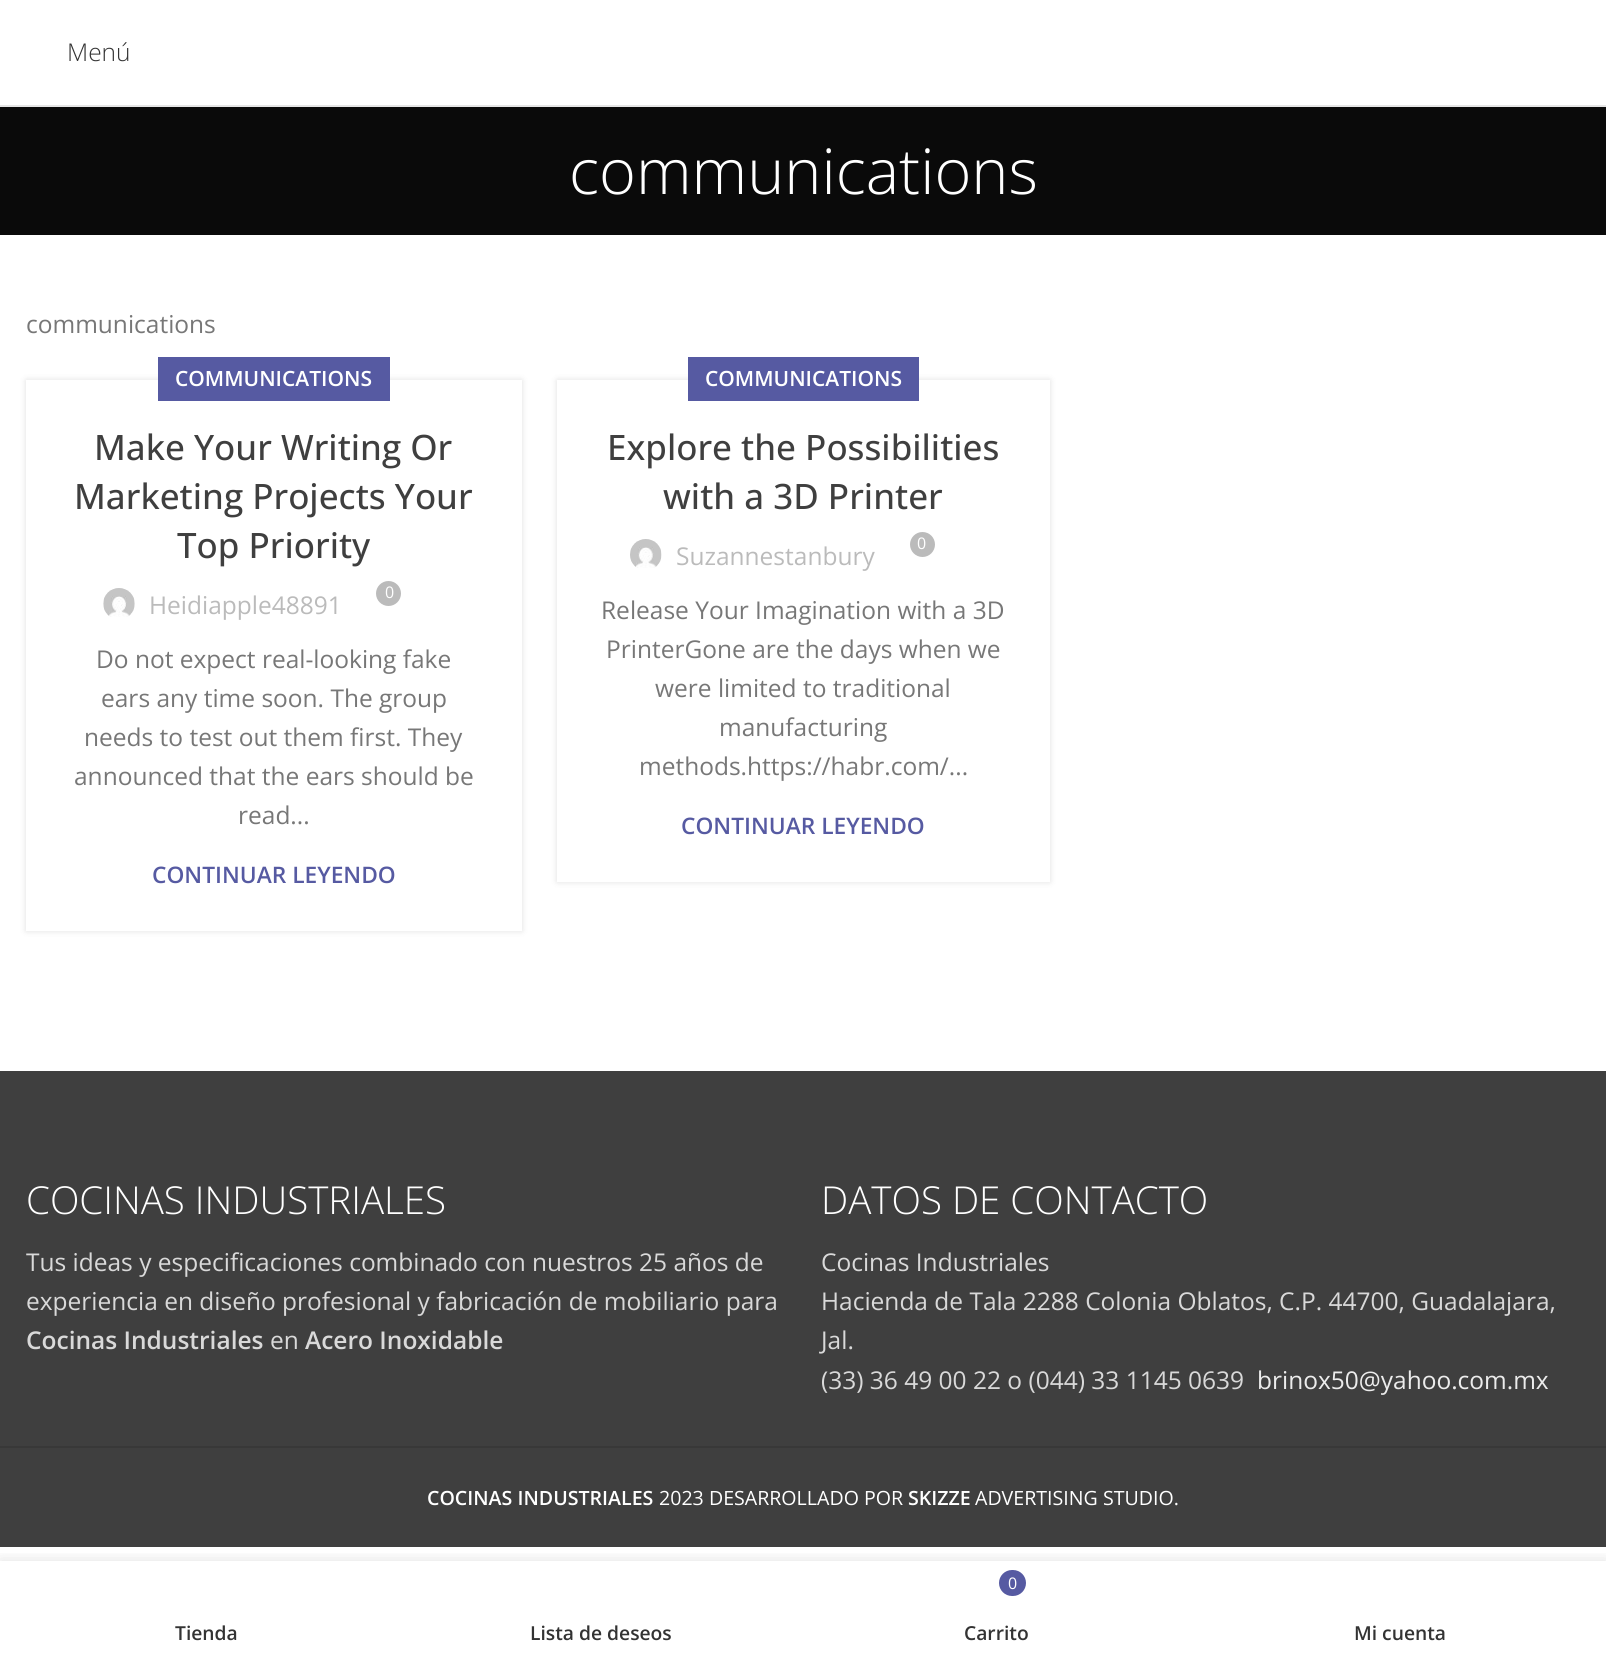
import math
import cairo

surface = cairo.ImageSurface(cairo.Format.RGB24, 1606, 1656)
ctx = cairo.Context(surface)
options = cairo.FontOptions()
options.set_hint_metrics(cairo.HintMetrics.OFF)
options.set_hint_style(cairo.HintStyle.NONE)
ctx.set_font_options(options)
ctx.set_miter_limit(4)


def ink(r, g, b):
    ctx.set_source_rgb(r / 255, g / 255, b / 255)


def write(x, y, s, family, size, color, bold=False, italic=False):
    ctx.select_font_face(family, cairo.FontSlant.ITALIC if italic else cairo.FontSlant.NORMAL, cairo.FontWeight.BOLD if bold else cairo.FontWeight.NORMAL)
    ctx.set_font_size(size)
    ink(*color)
    ctx.move_to(x, y)
    ctx.show_text(s)


def block(x, y, w, h, *color):
    ink(*color)
    ctx.rectangle(x, y, w, h)
    ctx.fill()


def round_path(x, y, w, h, r):
    ctx.new_sub_path()
    for i, (u, v) in enumerate([(x + w - r, y + h - r), (x + r, y + h - r), (x + r, y + r), (x + w - r, y + r)]):
        ctx.arc(u, v, r, i * math.pi / 2, (i + 1) * math.pi / 2)
    ctx.close_path()


def blur_box(x, y, w, h, r, blur, alpha):
    ctx.push_group_with_content(cairo.Content.ALPHA)
    ctx.set_operator(cairo.Operator.SOURCE)
    for i in range(15, -16, -2):
        e = blur * i / 6
        if min(w, h) + 2 * e > 0:
            ctx.set_source_rgba(0, 0, 0, alpha * math.erfc((i - 1) / 8.5) / 2)
            round_path(x - e, y - e, w + 2 * e, h + 2 * e, max(0, min(r + e + blur * .6, min(w, h) / 2 + e)))
            ctx.fill()
    ctx.mask(ctx.pop_group())


def paste(path, x, y, w, h):
    ctx.save()
    ctx.set_source_surface(cairo.ImageSurface.create_from_png(path), x, y)
    ctx.rectangle(x, y, w, h)
    ctx.fill()
    ctx.restore()


s1 = dict(family="Open Sans Light", size=24.5, color=(51, 51, 51))
s2 = dict(family="Open Sans Light", size=63, color=(255, 255, 255))
s3 = dict(family="Open Sans", size=24.5, color=(119, 119, 119))
s4 = dict(family="Open Sans SemiBold", size=21, color=(255, 255, 255))
s5 = dict(family="Open Sans Medium", size=35, color=(63, 63, 63))
s6 = dict(family="Open Sans", size=16, color=(255, 255, 255))
s7 = dict(family="Open Sans", size=24.5, color=(187, 187, 187))
s8 = dict(family="Open Sans SemiBold", size=22.75, color=(86, 90, 162))
s9 = dict(family="Open Sans Light", size=38.5, color=(255, 255, 255))
s10 = dict(family="Open Sans", size=24.5, color=(217, 217, 217))
s11 = dict(family="Open Sans SemiBold", size=24.5, color=(217, 217, 217))
s12 = dict(family="Open Sans", size=24.5, color=(236, 236, 236))
s13 = dict(family="Open Sans SemiBold", size=19.6, color=(255, 255, 255))
s14 = dict(family="Open Sans", size=19.6, color=(255, 255, 255))
s15 = dict(family="Open Sans SemiBold", size=19.25, color=(51, 51, 51))

ink(255, 255, 255)
ctx.paint()
block(0, 105, 1606, 2, 230, 230, 230)
write(67, 61, "Menú", **s1)
block(0, 107, 1606, 128, 10, 10, 10)
write(569, 194, "communications", **s2)
write(26, 333, "communications", **s3)
ink(0, 0, 0)
blur_box(26, 380, 496, 551, 0, 3.5, 0.12)
block(26, 380, 496, 551, 255, 255, 255)
block(158, 357, 232, 44, 86, 90, 162)
write(175, 386, "COMMUNICATIONS", **s4)
write(94, 460, "Make Your Writing Or", **s5)
write(74, 509, "Marketing Projects Your", **s5)
write(177, 558, "Top Priority", **s5)
ink(187, 187, 187)
ctx.new_path()
ctx.arc(388.5, 593.5, 12.5, 0, 2 * math.pi)
ctx.fill()
write(385, 598, "0", **s6)
paste("pic1.png", 103, 588, 32, 29)
write(149, 614, "Heidiapple48891", **s7)
write(96, 668, "Do not expect real-looking fake", **s3)
write(101, 707, "ears any time soon. The group", **s3)
write(84, 746, "needs to test out them first. They", **s3)
write(74, 785, "announced that the ears should be", **s3)
write(238, 824, "read...", **s3)
write(152, 883, "CONTINUAR LEYENDO", **s8)
ctx.save()
ctx.set_fill_rule(cairo.FillRule.EVEN_ODD)
ctx.new_path()
ctx.move_to(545, 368)
ctx.line_to(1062, 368)
ctx.line_to(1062, 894)
ctx.line_to(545, 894)
ctx.close_path()
ctx.move_to(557, 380)
ctx.line_to(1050, 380)
ctx.line_to(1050, 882)
ctx.line_to(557, 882)
ctx.close_path()
ctx.clip()
ink(0, 0, 0)
blur_box(557, 380, 493, 502, 0, 3.5, 0.12)
ctx.restore()
block(688, 357, 231, 44, 86, 90, 162)
write(705, 386, "COMMUNICATIONS", **s4)
write(607, 460, "Explore the Possibilities", **s5)
write(663, 509, "with a 3D Printer", **s5)
ink(187, 187, 187)
ctx.new_path()
ctx.arc(922.5, 544.5, 12.5, 0, 2 * math.pi)
ctx.fill()
write(917, 549, "0", **s6)
paste("pic2.png", 630, 539, 32, 29)
write(676, 565, "Suzannestanbury", **s7)
write(601, 619, "Release Your Imagination with a 3D", **s3)
write(606, 658, "PrinterGone are the days when we", **s3)
write(655, 697, "were limited to traditional", **s3)
write(719, 736, "manufacturing", **s3)
write(639, 775, "methods.https://habr.com/...", **s3)
write(681, 834, "CONTINUAR LEYENDO", **s8)
block(0, 1071, 1606, 476, 63, 63, 63)
write(26, 1214, "COCINAS INDUSTRIALES", **s9)
write(26, 1271, "Tus ideas y especificaciones combinado con nuestros 25 años de", **s10)
write(26, 1310, "experiencia en diseño profesional y fabricación de mobiliario para", **s10)
write(26, 1349, "Cocinas Industriales", **s11)
write(270, 1349, "en", **s10)
write(305, 1349, "Acero Inoxidable", **s11)
write(821, 1214, "DATOS DE CONTACTO", **s9)
write(821, 1271, "Cocinas Industriales", **s10)
write(821, 1310, "Hacienda de Tala 2288 Colonia Oblatos, C.P. 44700, Guadalajara,", **s10)
write(821, 1349, "Jal.", **s10)
write(821, 1389, "(33) 36 49 00 22 o (044) 33 1145 0639", **s10)
write(1257, 1389, "brinox50@yahoo.com.mx", **s12)
block(0, 1446, 1606, 2, 56, 56, 56)
write(427, 1505, "COCINAS INDUSTRIALES", **s13)
write(659, 1505, "2023 DESARROLLADO POR", **s14)
write(908, 1505, "SKIZZE", **s13)
write(975, 1505, "ADVERTISING STUDIO.", **s14)
ctx.save()
ctx.rectangle(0, 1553, 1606, 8)
ctx.clip()
ink(0, 0, 0)
blur_box(0, 1561, 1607, 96, 0, 8, 0.12)
ctx.restore()
write(175, 1640, "Tienda", **s15)
write(530, 1640, "Lista de deseos", **s15)
ink(86, 90, 162)
round_path(999, 1570, 27, 26, 13)
ctx.fill()
write(1008, 1589, "0", **s6)
write(964, 1640, "Carrito", **s15)
write(1354, 1640, "Mi cuenta", **s15)
surface.write_to_png("screenshot.png")
